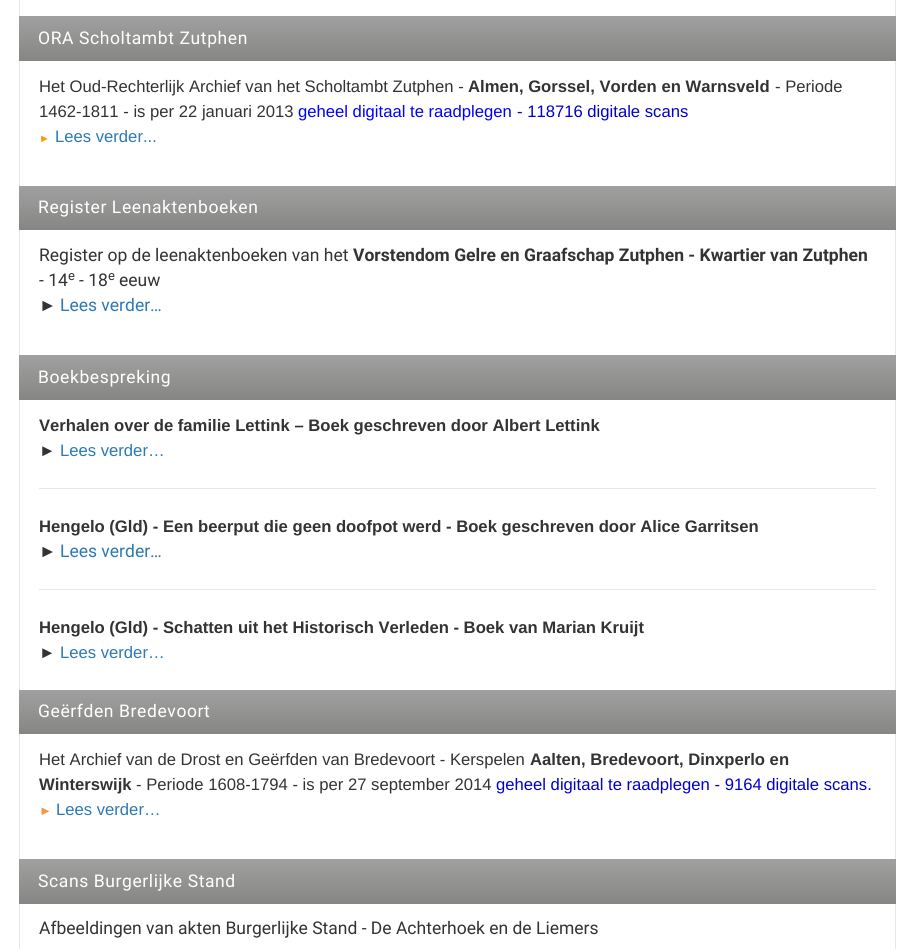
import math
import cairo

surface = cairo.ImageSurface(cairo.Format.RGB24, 914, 949)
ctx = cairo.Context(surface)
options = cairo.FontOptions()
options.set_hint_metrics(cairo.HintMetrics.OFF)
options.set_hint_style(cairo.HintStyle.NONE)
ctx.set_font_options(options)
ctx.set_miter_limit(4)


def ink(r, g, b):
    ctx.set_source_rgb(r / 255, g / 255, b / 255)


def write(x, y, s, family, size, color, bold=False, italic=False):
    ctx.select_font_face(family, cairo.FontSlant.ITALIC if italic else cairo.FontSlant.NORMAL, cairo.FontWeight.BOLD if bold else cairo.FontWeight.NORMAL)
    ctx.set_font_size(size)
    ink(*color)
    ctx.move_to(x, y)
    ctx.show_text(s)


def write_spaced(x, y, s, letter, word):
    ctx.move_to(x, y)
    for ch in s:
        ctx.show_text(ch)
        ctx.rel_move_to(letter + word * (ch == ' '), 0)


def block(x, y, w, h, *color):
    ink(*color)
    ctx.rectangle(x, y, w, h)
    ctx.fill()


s1 = dict(family="Liberation Sans", size=16.65, color=(51, 51, 51))
s2 = dict(family="Liberation Sans", size=16.65, color=(51, 51, 51), bold=True)
s3 = dict(family="Liberation Sans", size=16.65, color=(0, 0, 255))
s4 = dict(family="Liberation Sans", size=16.65, color=(0, 0, 204))
s5 = dict(family="Liberation Sans", size=11, color=(255, 153, 0))
s6 = dict(family="Liberation Sans", size=16.65, color=(44, 121, 179))
s7 = dict(family="Roboto", size=17.5, color=(51, 51, 51))
s8 = dict(family="Roboto", size=17.5, color=(51, 51, 51), bold=True)
s9 = dict(family="Roboto", size=13, color=(51, 51, 51))
s10 = dict(family="Liberation Sans", size=17.5, color=(51, 51, 51))
s11 = dict(family="Roboto", size=17.5, color=(44, 121, 179))
s12 = dict(family="Liberation Sans", size=13, color=(247, 150, 70))

ink(255, 255, 255)
ctx.paint()
ctx.rectangle(19.5, -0.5, 876, 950)
ink(231, 232, 230)
ctx.set_line_width(1)
ctx.stroke()
gradient = cairo.LinearGradient(458, 16, 458, 61)
gradient.add_color_stop_rgba(0, 0.627, 0.627, 0.627, 1)
gradient.add_color_stop_rgba(1, 0.525, 0.529, 0.518, 1)
ctx.set_source(gradient)
ctx.rectangle(19, 16, 877, 45)
ctx.fill()
ctx.select_font_face("Roboto")
ctx.set_font_size(17.5)
ink(255, 255, 255)
write_spaced(38, 44, "ORA Scholtambt Zutphen", 0.6, 0)
write(39, 92, "Het Oud-Rechterlijk Archief van het Scholtambt Zutphen -", **s1)
write(468, 92, "Almen, Gorssel, Vorden en Warnsveld", **s2)
write(775, 92, "- Periode", **s1)
write(39, 117, "1462-1811 - is per 22 januari 2013", **s1)
write(298, 117, "geheel digitaal te raadplegen", **s3)
write(517, 117, "- 118716 digitale scans", **s4)
write(39, 142, "►", **s5)
write(55, 142, "Lees verder...", **s6)
gradient = cairo.LinearGradient(458, 186, 458, 230)
gradient.add_color_stop_rgba(0, 0.627, 0.627, 0.627, 1)
gradient.add_color_stop_rgba(1, 0.525, 0.529, 0.518, 1)
ctx.set_source(gradient)
ctx.rectangle(19, 186, 877, 44)
ctx.fill()
ctx.select_font_face("Roboto")
ctx.set_font_size(17.5)
ink(255, 255, 255)
write_spaced(38, 213, "Register Leenaktenboeken", 0.6, 0)
write(39, 261, "Register op de leenaktenboeken van het", **s7)
write(353, 261, "Vorstendom Gelre en Graafschap Zutphen - Kwartier van Zutphen", **s8)
write(39, 286, "- 14", **s7)
write(68, 280, "e", **s9)
write(79, 286, "- 18", **s7)
write(108, 280, "e", **s9)
write(119, 286, "eeuw", **s7)
write(39, 311, "►", **s10)
write(60, 311, "Lees verder…", **s11)
gradient = cairo.LinearGradient(458, 355, 458, 400)
gradient.add_color_stop_rgba(0, 0.627, 0.627, 0.627, 1)
gradient.add_color_stop_rgba(1, 0.525, 0.529, 0.518, 1)
ctx.set_source(gradient)
ctx.rectangle(19, 355, 877, 45)
ctx.fill()
ink(255, 255, 255)
write_spaced(38, 383, "Boekbespreking", 0.6, 0)
write(39, 431, "Verhalen over de familie Lettink – Boek geschreven door Albert Lettink", **s2)
write(39, 456, "►", **s2)
write(60, 456, "Lees verder…", **s6)
block(39, 488, 837, 1, 231, 232, 230)
write(39, 532, "Hengelo (Gld) - Een beerput die geen doofpot werd - Boek geschreven door Alice Garritsen", **s2)
write(39, 557, "►", **s10)
write(60, 557, "Lees verder…", **s11)
block(39, 589, 837, 1, 231, 232, 230)
write(39, 633, "Hengelo (Gld) - Schatten uit het Historisch Verleden - Boek van Marian Kruijt", **s2)
write(39, 658, "►", **s1)
write(60, 658, "Lees verder…", **s6)
gradient = cairo.LinearGradient(458, 690, 458, 734)
gradient.add_color_stop_rgba(0, 0.627, 0.627, 0.627, 1)
gradient.add_color_stop_rgba(1, 0.525, 0.529, 0.518, 1)
ctx.set_source(gradient)
ctx.rectangle(19, 690, 877, 44)
ctx.fill()
ctx.select_font_face("Roboto")
ctx.set_font_size(17.5)
ink(255, 255, 255)
write_spaced(38, 717, "Geërfden Bredevoort", 0.6, 0)
write(39, 765, "Het Archief van de Drost en Geërfden van Bredevoort - Kerspelen", **s1)
write(530, 765, "Aalten, Bredevoort, Dinxperlo en", **s2)
write(39, 790, "Winterswijk", **s2)
write(136, 790, "- Periode 1608-1794 - is per 27 september 2014", **s1)
write(496, 790, "geheel digitaal te raadplegen - 9164 digitale scans.", **s4)
write(39, 815, "►", **s12)
write(56, 815, "Lees verder…", **s6)
gradient = cairo.LinearGradient(458, 859, 458, 904)
gradient.add_color_stop_rgba(0, 0.627, 0.627, 0.627, 1)
gradient.add_color_stop_rgba(1, 0.525, 0.529, 0.518, 1)
ctx.set_source(gradient)
ctx.rectangle(19, 859, 877, 45)
ctx.fill()
ctx.select_font_face("Roboto")
ctx.set_font_size(17.5)
ink(255, 255, 255)
write_spaced(38, 887, "Scans Burgerlijke Stand", 0.6, 0)
write(39, 934, "Afbeeldingen van akten Burgerlijke Stand - De Achterhoek en de Liemers", **s7)
surface.write_to_png("screenshot.png")
